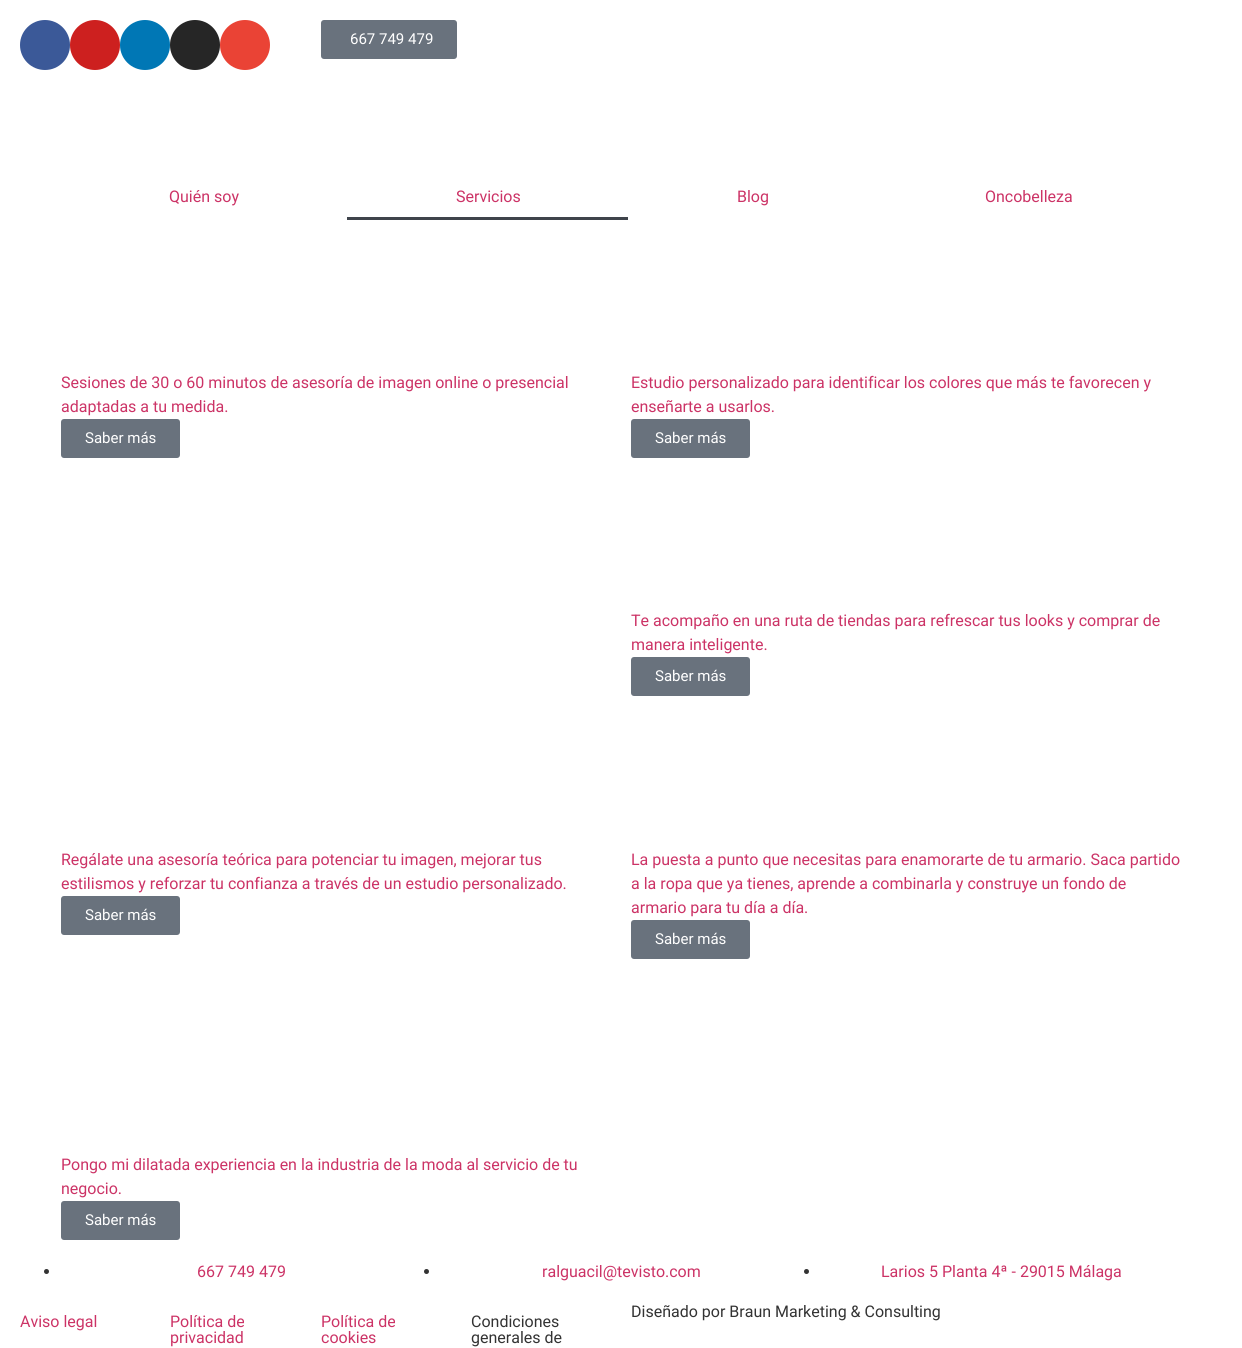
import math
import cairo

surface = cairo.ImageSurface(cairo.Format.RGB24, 1242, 1348)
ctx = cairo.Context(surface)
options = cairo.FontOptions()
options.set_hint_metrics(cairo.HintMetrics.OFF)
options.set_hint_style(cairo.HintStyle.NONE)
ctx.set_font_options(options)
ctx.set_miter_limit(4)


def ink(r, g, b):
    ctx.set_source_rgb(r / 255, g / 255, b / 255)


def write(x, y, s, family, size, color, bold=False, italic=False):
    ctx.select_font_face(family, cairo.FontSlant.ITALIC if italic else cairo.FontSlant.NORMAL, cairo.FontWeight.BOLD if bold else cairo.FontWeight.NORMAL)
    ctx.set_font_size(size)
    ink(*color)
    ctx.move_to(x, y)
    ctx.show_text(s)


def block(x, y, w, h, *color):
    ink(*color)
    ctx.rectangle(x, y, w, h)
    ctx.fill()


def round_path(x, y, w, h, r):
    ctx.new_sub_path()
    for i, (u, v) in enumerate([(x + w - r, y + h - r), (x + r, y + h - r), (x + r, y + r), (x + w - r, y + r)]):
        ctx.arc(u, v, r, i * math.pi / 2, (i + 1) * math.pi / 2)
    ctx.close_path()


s1 = dict(family="Roboto", size=15, color=(255, 255, 255))
s2 = dict(family="Roboto", size=16, color=(204, 51, 102))
s3 = dict(family="Roboto", size=16, color=(51, 51, 51))

ink(255, 255, 255)
ctx.paint()
ink(59, 89, 152)
ctx.arc(45, 45, 25, 0, 2 * math.pi)
ctx.fill()
ink(205, 32, 31)
ctx.arc(95, 45, 25, 0, 2 * math.pi)
ctx.fill()
ink(0, 119, 181)
ctx.arc(145, 45, 25, 0, 2 * math.pi)
ctx.fill()
ink(38, 38, 38)
ctx.arc(195, 45, 25, 0, 2 * math.pi)
ctx.fill()
ink(234, 67, 53)
ctx.arc(245, 45, 25, 0, 2 * math.pi)
ctx.fill()
ink(105, 114, 125)
round_path(321, 20, 136, 39, 3)
ctx.fill()
write(350, 44, "667 749 479", **s1)
write(169, 202, "Quién soy", **s2)
write(456, 202, "Servicios", **s2)
block(347, 217, 281, 3, 63, 68, 75)
write(737, 202, "Blog", **s2)
write(985, 202, "Oncobelleza", **s2)
write(61, 388, "Sesiones de 30 o 60 minutos de asesoría de imagen online o presencial", **s2)
write(61, 412, "adaptadas a tu medida.", **s2)
ink(105, 114, 125)
round_path(61, 419, 119, 39, 3)
ctx.fill()
write(85, 443, "Saber más", **s1)
write(631, 388, "Estudio personalizado para identificar los colores que más te favorecen y", **s2)
write(631, 412, "enseñarte a usarlos.", **s2)
ink(105, 114, 125)
round_path(631, 419, 119, 39, 3)
ctx.fill()
write(655, 443, "Saber más", **s1)
write(631, 626, "Te acompaño en una ruta de tiendas para refrescar tus looks y comprar de", **s2)
write(631, 650, "manera inteligente.", **s2)
ink(105, 114, 125)
round_path(631, 657, 119, 39, 3)
ctx.fill()
write(655, 681, "Saber más", **s1)
write(61, 865, "Regálate una asesoría teórica para potenciar tu imagen, mejorar tus", **s2)
write(61, 889, "estilismos y reforzar tu confianza a través de un estudio personalizado.", **s2)
ink(105, 114, 125)
round_path(61, 896, 119, 39, 3)
ctx.fill()
write(85, 920, "Saber más", **s1)
write(61, 1170, "Pongo mi dilatada experiencia en la industria de la moda al servicio de tu", **s2)
write(61, 1194, "negocio.", **s2)
ink(105, 114, 125)
round_path(61, 1201, 119, 39, 3)
ctx.fill()
write(85, 1225, "Saber más", **s1)
write(631, 865, "La puesta a punto que necesitas para enamorarte de tu armario. Saca partido", **s2)
write(631, 889, "a la ropa que ya tienes, aprende a combinarla y construye un fondo de", **s2)
write(631, 913, "armario para tu día a día.", **s2)
ink(105, 114, 125)
round_path(631, 920, 119, 39, 3)
ctx.fill()
write(655, 944, "Saber más", **s1)
ink(51, 51, 51)
ctx.new_path()
ctx.arc(46.5, 1271.5, 2.5, 0, 2 * math.pi)
ctx.fill()
write(197, 1277, "667 749 479", **s2)
ink(51, 51, 51)
ctx.new_path()
ctx.arc(426.5, 1271.5, 2.5, 0, 2 * math.pi)
ctx.fill()
write(542, 1277, "ralguacil@tevisto.com", **s2)
ink(51, 51, 51)
ctx.new_path()
ctx.arc(806.5, 1271.5, 2.5, 0, 2 * math.pi)
ctx.fill()
write(881, 1277, "Larios 5 Planta 4ª - 29015 Málaga", **s2)
write(631, 1317, "Diseñado por Braun Marketing & Consulting", **s3)
write(20, 1327, "Aviso legal", **s2)
write(170, 1327, "Política de", **s2)
write(170, 1343, "privacidad", **s2)
write(321, 1327, "Política de", **s2)
write(321, 1343, "cookies", **s2)
write(471, 1327, "Condiciones", **s3)
write(471, 1343, "generales de", **s3)
surface.write_to_png("screenshot.png")
